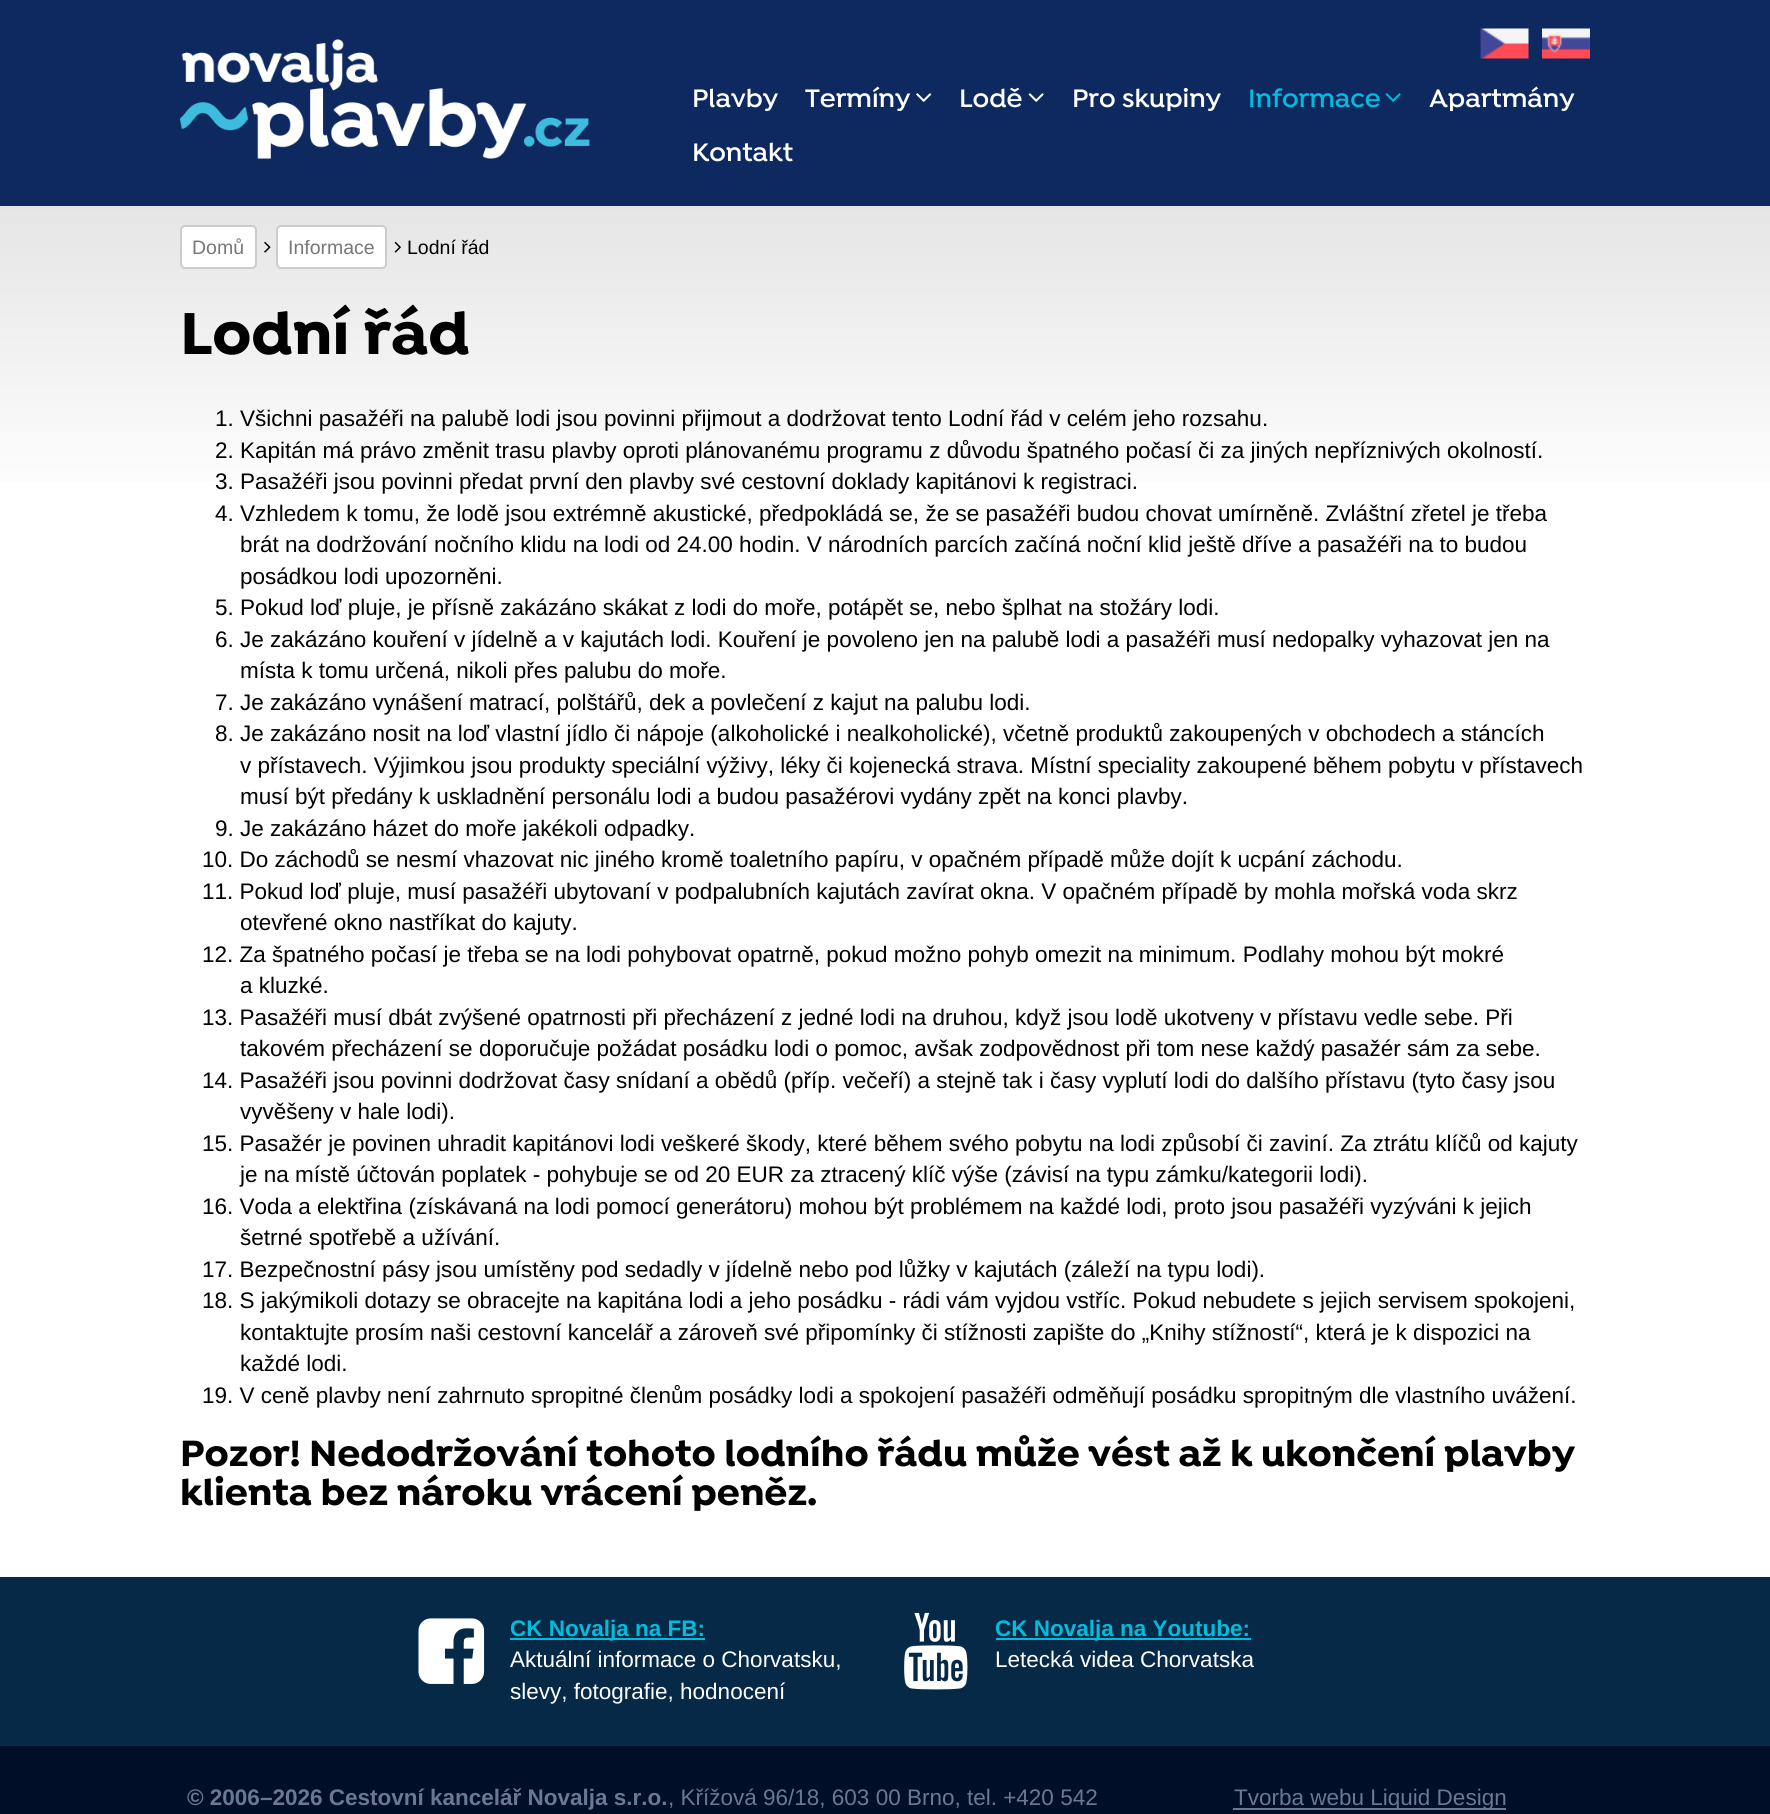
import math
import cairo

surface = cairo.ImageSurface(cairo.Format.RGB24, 1770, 1814)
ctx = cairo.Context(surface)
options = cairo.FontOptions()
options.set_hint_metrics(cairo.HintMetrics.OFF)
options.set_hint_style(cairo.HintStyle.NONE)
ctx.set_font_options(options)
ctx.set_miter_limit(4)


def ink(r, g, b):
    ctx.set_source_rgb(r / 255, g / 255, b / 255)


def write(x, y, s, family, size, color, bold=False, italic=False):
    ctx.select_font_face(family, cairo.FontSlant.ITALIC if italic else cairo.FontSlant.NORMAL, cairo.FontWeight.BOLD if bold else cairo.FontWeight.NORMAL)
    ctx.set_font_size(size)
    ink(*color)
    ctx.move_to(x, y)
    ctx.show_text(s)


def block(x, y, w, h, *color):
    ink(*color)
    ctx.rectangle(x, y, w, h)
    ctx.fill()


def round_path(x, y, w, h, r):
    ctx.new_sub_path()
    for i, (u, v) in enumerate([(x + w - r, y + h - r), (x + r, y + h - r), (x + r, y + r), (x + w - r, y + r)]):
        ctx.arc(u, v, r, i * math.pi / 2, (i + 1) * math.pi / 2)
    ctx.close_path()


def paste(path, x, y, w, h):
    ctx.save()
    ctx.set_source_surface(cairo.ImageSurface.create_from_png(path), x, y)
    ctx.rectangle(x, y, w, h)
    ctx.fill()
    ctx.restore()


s1 = dict(family="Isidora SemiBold", size=27, color=(255, 255, 255))
s2 = dict(family="Isidora SemiBold", size=27, color=(0, 188, 221))
s3 = dict(family="Liberation Sans", size=19.5, color=(119, 119, 119))
s4 = dict(family="Liberation Sans", size=19.5, color=(0, 0, 0))
s5 = dict(family="Isidora", size=63, color=(0, 0, 0), bold=True)
s6 = dict(family="Liberation Sans", size=22.5, color=(0, 0, 0))
s7 = dict(family="Isidora", size=39, color=(0, 0, 0), bold=True)
s8 = dict(family="Liberation Sans", size=22.5, color=(0, 188, 221), bold=True)
s9 = dict(family="Liberation Sans", size=22.5, color=(255, 255, 255))
s10 = dict(family="Liberation Sans", size=22.5, color=(105, 120, 147), bold=True)
s11 = dict(family="Liberation Sans", size=22.5, color=(105, 120, 147))

ink(255, 255, 255)
ctx.paint()
block(0, 0, 1770, 206, 14, 41, 96)
paste("pic1.png", 180, 39, 410, 120)
paste("pic2.png", 1480, 28, 49, 31)
paste("pic3.png", 1542, 28, 48, 31)
write(692, 107, "Plavby", **s1)
write(805, 107, "Termíny", **s1)
paste("pic4.png", 916, 93, 16, 9)
write(959, 107, "Lodě", **s1)
paste("pic5.png", 1028, 93, 16, 9)
write(1072, 107, "Pro skupiny", **s1)
write(1248, 107, "Informace", **s2)
paste("pic6.png", 1385, 93, 16, 9)
write(1429, 107, "Apartmány", **s1)
write(692, 161, "Kontakt", **s1)
gradient = cairo.LinearGradient(885, 205, 885, 1532)
gradient.add_color_stop_rgba(0, 0.898, 0.898, 0.898, 1)
gradient.add_color_stop_rgba(0.23, 1, 1, 1, 1)
ctx.set_source(gradient)
ctx.rectangle(0, 206, 1770, 275)
ctx.fill()
ink(255, 255, 255)
round_path(181, 226, 75, 42, 4)
ctx.fill_preserve()
ink(204, 204, 204)
ctx.stroke()
write(192, 254, "Domů", **s3)
paste("pic7.png", 264, 241, 7, 12)
ink(255, 255, 255)
round_path(277, 226, 109, 42, 4)
ctx.fill_preserve()
ink(204, 204, 204)
ctx.stroke()
write(288, 254, "Informace", **s3)
paste("pic8.png", 394, 241, 7, 12)
write(407, 254, "Lodní řád", **s4)
write(180, 354, "Lodní řád", **s5)
write(215, 426, "1. Všichni pasažéři na palubě lodi jsou povinni přijmout a dodržovat tento Lodní řád v celém jeho rozsahu.", **s6)
write(215, 458, "2. Kapitán má právo změnit trasu plavby oproti plánovanému programu z důvodu špatného počasí či za jiných nepříznivých okolností.", **s6)
write(215, 489, "3. Pasažéři jsou povinni předat první den plavby své cestovní doklady kapitánovi k registraci.", **s6)
write(215, 521, "4. Vzhledem k tomu, že lodě jsou extrémně akustické, předpokládá se, že se pasažéři budou chovat umírněně. Zvláštní zřetel je třeba", **s6)
write(240, 552, "brát na dodržování nočního klidu na lodi od 24.00 hodin. V národních parcích začíná noční klid ještě dříve a pasažéři na to budou", **s6)
write(240, 584, "posádkou lodi upozorněni.", **s6)
write(215, 615, "5. Pokud loď pluje, je přísně zakázáno skákat z lodi do moře, potápět se, nebo šplhat na stožáry lodi.", **s6)
write(215, 647, "6. Je zakázáno kouření v jídelně a v kajutách lodi. Kouření je povoleno jen na palubě lodi a pasažéři musí nedopalky vyhazovat jen na", **s6)
write(240, 678, "místa k tomu určená, nikoli přes palubu do moře.", **s6)
write(215, 710, "7. Je zakázáno vynášení matrací, polštářů, dek a povlečení z kajut na palubu lodi.", **s6)
write(215, 741, "8. Je zakázáno nosit na loď vlastní jídlo či nápoje (alkoholické i nealkoholické), včetně produktů zakoupených v obchodech a stáncích", **s6)
write(240, 773, "v přístavech. Výjimkou jsou produkty speciální výživy, léky či kojenecká strava. Místní speciality zakoupené během pobytu v přístavech", **s6)
write(240, 804, "musí být předány k uskladnění personálu lodi a budou pasažérovi vydány zpět na konci plavby.", **s6)
write(215, 836, "9. Je zakázáno házet do moře jakékoli odpadky.", **s6)
write(202, 867, "10. Do záchodů se nesmí vhazovat nic jiného kromě toaletního papíru, v opačném případě může dojít k ucpání záchodu.", **s6)
write(202, 899, "11. Pokud loď pluje, musí pasažéři ubytovaní v podpalubních kajutách zavírat okna. V opačném případě by mohla mořská voda skrz", **s6)
write(240, 930, "otevřené okno nastříkat do kajuty.", **s6)
write(202, 962, "12. Za špatného počasí je třeba se na lodi pohybovat opatrně, pokud možno pohyb omezit na minimum. Podlahy mohou být mokré", **s6)
write(240, 993, "a kluzké.", **s6)
write(202, 1025, "13. Pasažéři musí dbát zvýšené opatrnosti při přecházení z jedné lodi na druhou, když jsou lodě ukotveny v přístavu vedle sebe. Při", **s6)
write(240, 1056, "takovém přecházení se doporučuje požádat posádku lodi o pomoc, avšak zodpovědnost při tom nese každý pasažér sám za sebe.", **s6)
write(202, 1088, "14. Pasažéři jsou povinni dodržovat časy snídaní a obědů (příp. večeří) a stejně tak i časy vyplutí lodi do dalšího přístavu (tyto časy jsou", **s6)
write(240, 1119, "vyvěšeny v hale lodi).", **s6)
write(202, 1151, "15. Pasažér je povinen uhradit kapitánovi lodi veškeré škody, které během svého pobytu na lodi způsobí či zaviní. Za ztrátu klíčů od kajuty", **s6)
write(240, 1182, "je na místě účtován poplatek - pohybuje se od 20 EUR za ztracený klíč výše (závisí na typu zámku/kategorii lodi).", **s6)
write(202, 1214, "16. Voda a elektřina (získávaná na lodi pomocí generátoru) mohou být problémem na každé lodi, proto jsou pasažéři vyzýváni k jejich", **s6)
write(240, 1245, "šetrné spotřebě a užívání.", **s6)
write(202, 1277, "17. Bezpečnostní pásy jsou umístěny pod sedadly v jídelně nebo pod lůžky v kajutách (záleží na typu lodi).", **s6)
write(202, 1308, "18. S jakýmikoli dotazy se obracejte na kapitána lodi a jeho posádku - rádi vám vyjdou vstříc. Pokud nebudete s jejich servisem spokojeni,", **s6)
write(240, 1340, "kontaktujte prosím naši cestovní kancelář a zároveň své připomínky či stížnosti zapište do „Knihy stížností“, která je k dispozici na", **s6)
write(240, 1371, "každé lodi.", **s6)
write(202, 1403, "19. V ceně plavby není zahrnuto spropitné členům posádky lodi a spokojení pasažéři odměňují posádku spropitným dle vlastního uvážení.", **s6)
write(180, 1466, "Pozor! Nedodržování tohoto lodního řádu může vést až k ukončení plavby", **s7)
write(180, 1505, "klienta bez nároku vrácení peněz.", **s7)
block(0, 1577, 1770, 169, 5, 41, 71)
paste("pic9.png", 418, 1618, 67, 66)
block(510, 1638, 195, 2, 0, 188, 221)
write(510, 1636, "CK Novalja na FB:", **s8)
write(510, 1667, "Aktuální informace o Chorvatsku,", **s9)
write(510, 1699, "slevy, fotografie, hodnocení", **s9)
paste("pic10.png", 904, 1612, 64, 78)
block(996, 1638, 255, 2, 0, 188, 221)
write(995, 1636, "CK Novalja na Youtube:", **s8)
write(995, 1667, "Letecká videa Chorvatska", **s9)
block(0, 1746, 1770, 68, 0, 14, 40)
write(187, 1805, "© 2006–2026 Cestovní kancelář Novalja s.r.o.", **s10)
write(668, 1805, ", Křížová 96/18, 603 00 Brno, tel. +420 542", **s11)
block(1233, 1808, 273, 2, 105, 120, 147)
write(1234, 1805, "Tvorba webu Liquid Design", **s11)
surface.write_to_png("screenshot.png")
